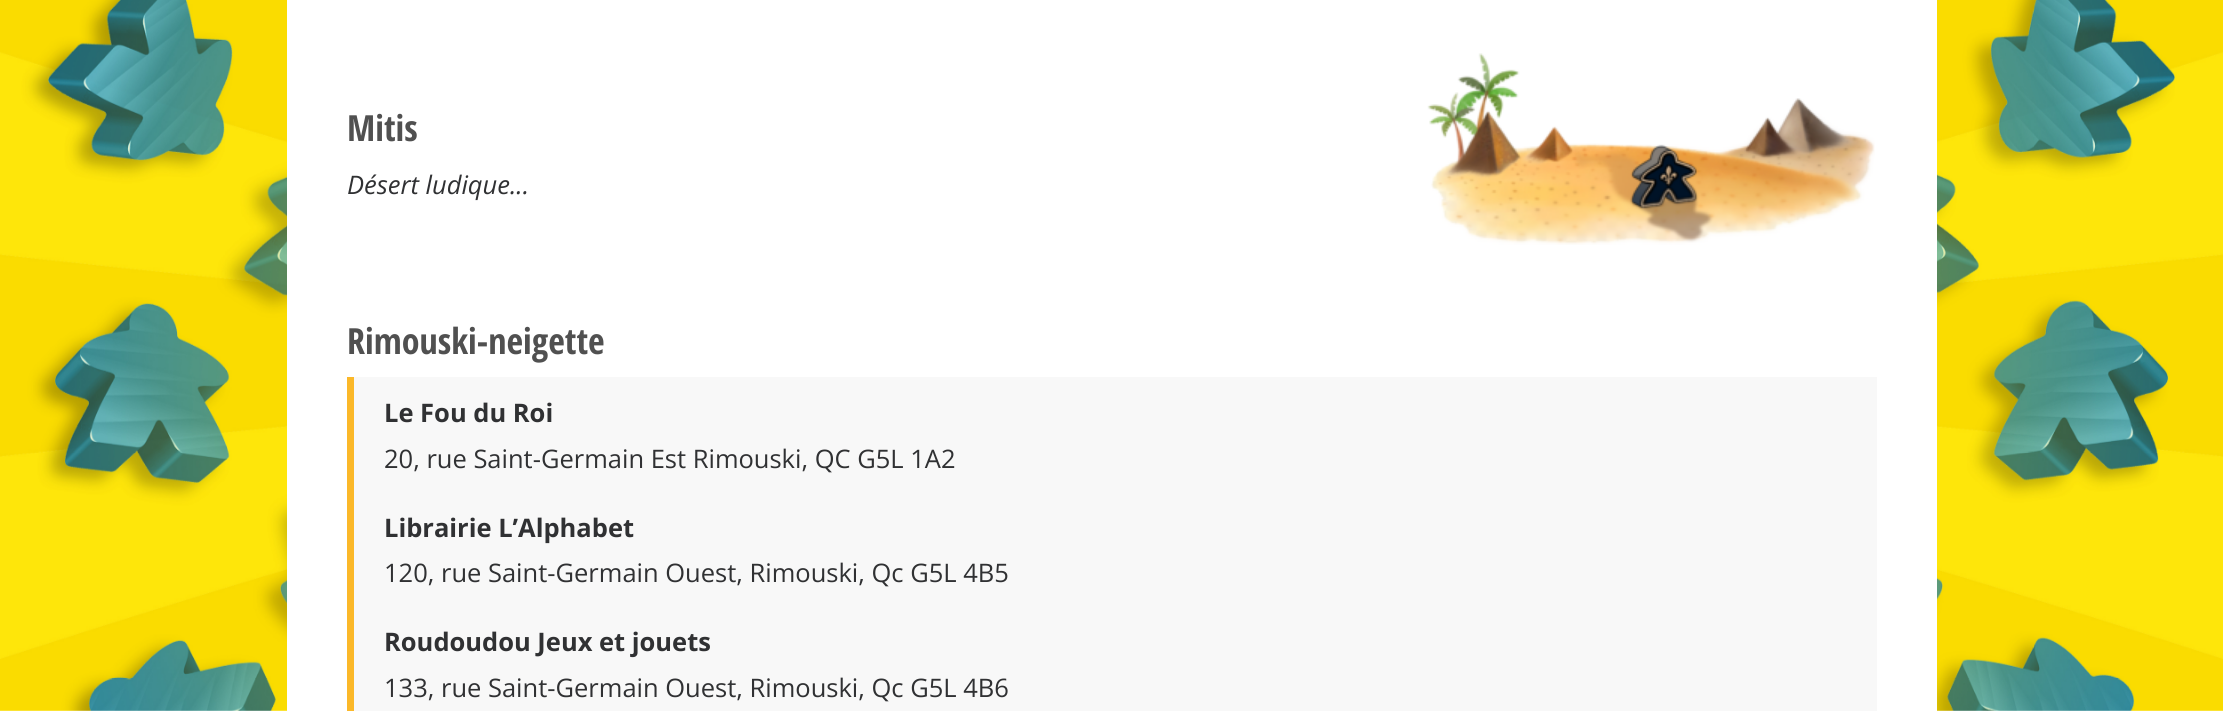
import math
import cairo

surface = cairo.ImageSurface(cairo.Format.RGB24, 2223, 711)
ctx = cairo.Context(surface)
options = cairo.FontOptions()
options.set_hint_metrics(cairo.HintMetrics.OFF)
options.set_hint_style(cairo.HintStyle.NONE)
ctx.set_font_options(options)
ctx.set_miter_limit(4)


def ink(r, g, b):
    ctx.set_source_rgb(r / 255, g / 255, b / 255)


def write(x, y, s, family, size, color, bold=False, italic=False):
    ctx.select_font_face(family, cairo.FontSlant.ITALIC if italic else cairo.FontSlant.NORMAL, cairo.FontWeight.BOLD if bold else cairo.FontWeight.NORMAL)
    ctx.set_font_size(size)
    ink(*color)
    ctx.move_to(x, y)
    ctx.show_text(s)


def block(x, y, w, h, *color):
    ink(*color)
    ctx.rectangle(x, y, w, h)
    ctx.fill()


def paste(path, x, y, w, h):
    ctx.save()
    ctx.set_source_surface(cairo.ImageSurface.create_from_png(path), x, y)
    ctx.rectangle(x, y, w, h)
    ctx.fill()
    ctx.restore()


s1 = dict(family="Open Sans Condensed", size=36, color=(80, 80, 80), bold=True)
s2 = dict(family="Open Sans", size=25.5, color=(48, 49, 51), italic=True)
s3 = dict(family="Open Sans", size=25.5, color=(48, 49, 51), bold=True)
s4 = dict(family="Open Sans", size=25.5, color=(48, 49, 51))

ink(255, 255, 255)
ctx.paint()
paste("pic1.png", 0, 0, 2223, 711)
block(287, 0, 1650, 711, 255, 255, 255)
write(347, 141, "Mitis", **s1)
write(347, 194, "Désert ludique...", **s2)
paste("pic2.png", 1427, 53, 448, 192)
write(347, 354, "Rimouski-neigette", **s1)
block(354, 377, 1523, 334, 248, 248, 248)
block(347, 377, 7, 334, 251, 184, 41)
write(384, 422, "Le Fou du Roi", **s3)
write(384, 468, "20, rue Saint-Germain Est Rimouski, QC G5L 1A2", **s4)
write(384, 537, "Librairie L’Alphabet", **s3)
write(384, 582, "120, rue Saint-Germain Ouest, Rimouski, Qc G5L 4B5", **s4)
write(384, 651, "Roudoudou Jeux et jouets", **s3)
write(384, 697, "133, rue Saint-Germain Ouest, Rimouski, Qc G5L 4B6", **s4)
surface.write_to_png("screenshot.png")
